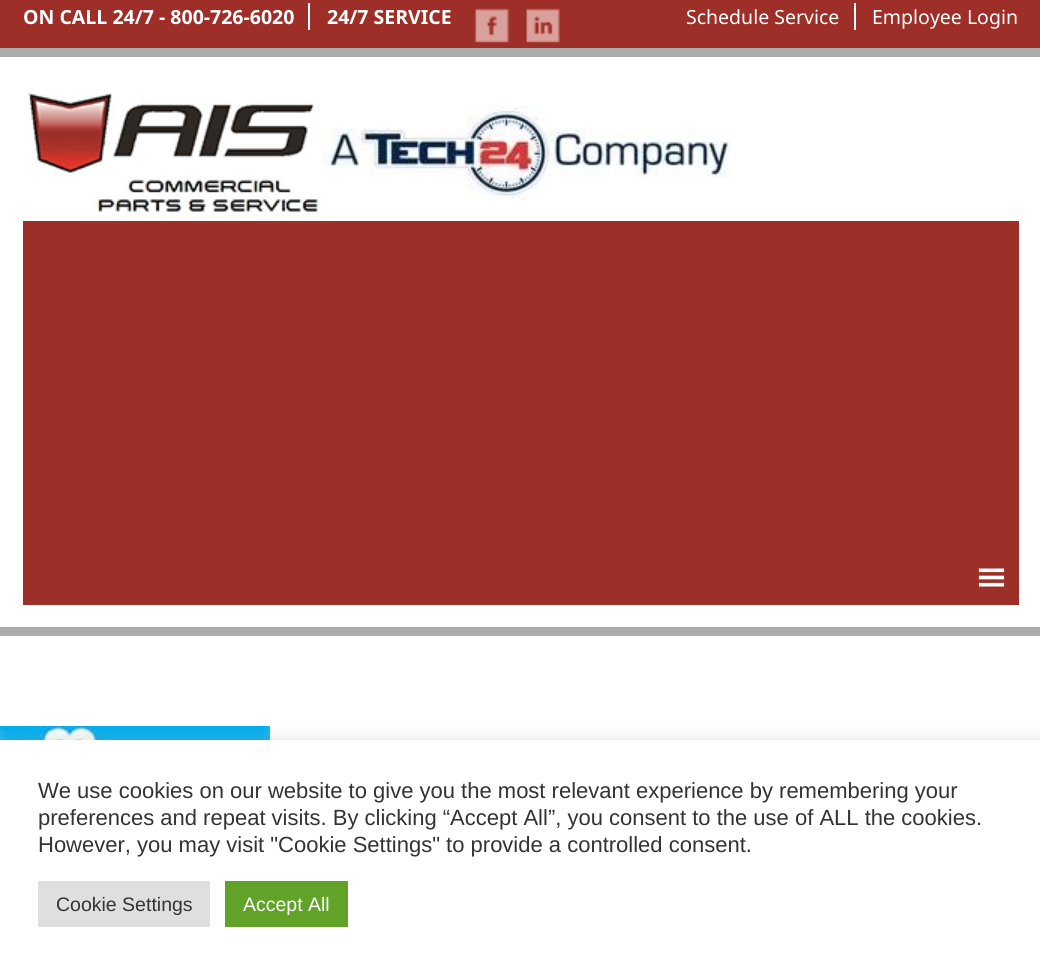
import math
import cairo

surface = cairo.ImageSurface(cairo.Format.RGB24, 1040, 972)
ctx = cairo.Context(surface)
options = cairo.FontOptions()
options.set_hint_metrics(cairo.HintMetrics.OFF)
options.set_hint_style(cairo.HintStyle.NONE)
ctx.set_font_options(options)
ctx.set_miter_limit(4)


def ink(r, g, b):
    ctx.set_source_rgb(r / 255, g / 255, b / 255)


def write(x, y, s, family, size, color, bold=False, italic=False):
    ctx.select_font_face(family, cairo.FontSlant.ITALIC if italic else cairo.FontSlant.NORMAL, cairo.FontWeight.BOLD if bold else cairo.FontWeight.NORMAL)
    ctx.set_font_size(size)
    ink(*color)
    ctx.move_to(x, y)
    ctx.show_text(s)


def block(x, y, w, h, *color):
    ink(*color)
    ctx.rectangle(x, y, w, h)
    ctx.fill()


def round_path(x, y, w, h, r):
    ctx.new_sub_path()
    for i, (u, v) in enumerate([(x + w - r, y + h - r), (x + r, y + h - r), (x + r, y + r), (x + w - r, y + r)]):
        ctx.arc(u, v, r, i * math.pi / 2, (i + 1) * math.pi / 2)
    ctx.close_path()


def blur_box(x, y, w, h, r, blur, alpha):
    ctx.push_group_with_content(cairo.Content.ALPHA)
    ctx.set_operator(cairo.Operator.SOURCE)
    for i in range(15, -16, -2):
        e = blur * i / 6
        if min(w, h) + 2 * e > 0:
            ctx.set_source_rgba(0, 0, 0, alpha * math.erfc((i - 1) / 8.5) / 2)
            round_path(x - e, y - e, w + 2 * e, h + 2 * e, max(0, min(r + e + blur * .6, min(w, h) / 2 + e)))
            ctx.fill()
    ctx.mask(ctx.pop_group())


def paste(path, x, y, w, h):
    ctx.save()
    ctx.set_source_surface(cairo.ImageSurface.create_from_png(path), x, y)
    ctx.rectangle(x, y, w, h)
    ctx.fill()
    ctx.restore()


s1 = dict(family="Noto Sans", size=19.5, color=(255, 255, 255), bold=True)
s2 = dict(family="Noto Sans", size=19.5, color=(255, 255, 255))
s3 = dict(family="Liberation Sans", size=22, color=(51, 51, 51))
s4 = dict(family="Liberation Sans", size=19.5, color=(51, 51, 51))
s5 = dict(family="Liberation Sans", size=19.5, color=(255, 255, 255))

ink(255, 255, 255)
ctx.paint()
block(0, 0, 1040, 48, 158, 47, 40)
block(0, 48, 1040, 9, 172, 172, 172)
block(308, 3, 2, 27, 255, 255, 255)
write(23, 24, "ON CALL 24/7 - 800-726-6020", **s1)
write(327, 24, "24/7 SERVICE", **s1)
paste("pic1.png", 475, 8, 34, 35)
paste("pic2.png", 526, 8, 34, 35)
block(854, 3, 2, 27, 255, 255, 255)
write(686, 24, "Schedule Service", **s2)
write(872, 24, "Employee Login", **s2)
block(0, 627, 1040, 9, 172, 172, 172)
paste("pic3.png", 28, 92, 294, 125)
paste("pic4.png", 322, 105, 409, 95)
block(23, 221, 996, 384, 158, 47, 40)
paste("pic5.png", 978, 568, 27, 19)
paste("pic6.png", 0, 726, 270, 14)
ink(172, 171, 171)
blur_box(0, 738, 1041, 233, 0, 7.5, 0.3)
block(0, 740, 1040, 232, 255, 255, 255)
write(38, 798, "We use cookies on our website to give you the most relevant experience by remembering your", **s3)
write(38, 825, "preferences and repeat visits. By clicking “Accept All”, you consent to the use of ALL the cookies.", **s3)
write(38, 852, "However, you may visit \"Cookie Settings\" to provide a controlled consent.", **s3)
block(38, 881, 172, 46, 222, 223, 224)
write(56, 911, "Cookie Settings", **s4)
block(225, 881, 123, 46, 97, 162, 41)
write(243, 911, "Accept All", **s5)
surface.write_to_png("screenshot.png")
